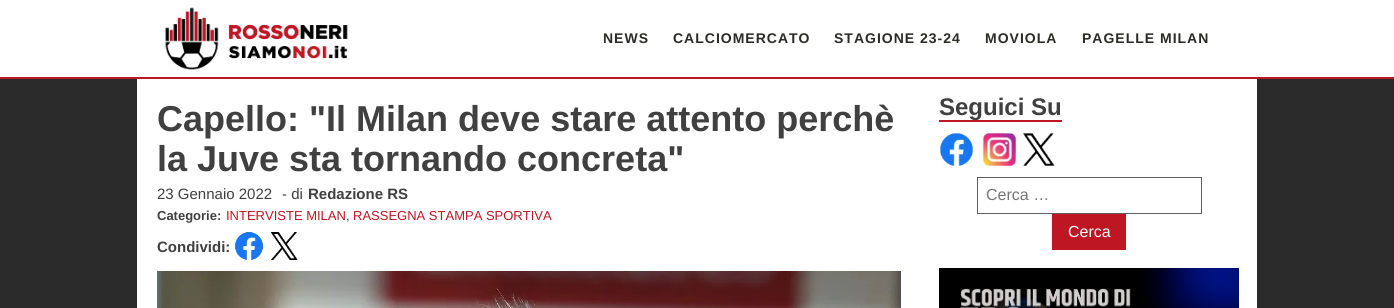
import math
import cairo

surface = cairo.ImageSurface(cairo.Format.RGB24, 1394, 308)
ctx = cairo.Context(surface)
options = cairo.FontOptions()
options.set_hint_metrics(cairo.HintMetrics.OFF)
options.set_hint_style(cairo.HintStyle.NONE)
ctx.set_font_options(options)
ctx.set_miter_limit(4)


def ink(r, g, b):
    ctx.set_source_rgb(r / 255, g / 255, b / 255)


def write(x, y, s, family, size, color, bold=False, italic=False):
    ctx.select_font_face(family, cairo.FontSlant.ITALIC if italic else cairo.FontSlant.NORMAL, cairo.FontWeight.BOLD if bold else cairo.FontWeight.NORMAL)
    ctx.set_font_size(size)
    ink(*color)
    ctx.move_to(x, y)
    ctx.show_text(s)


def write_spaced(x, y, s, letter, word):
    ctx.move_to(x, y)
    for ch in s:
        ctx.show_text(ch)
        ctx.rel_move_to(letter + word * (ch == ' '), 0)


def block(x, y, w, h, *color):
    ink(*color)
    ctx.rectangle(x, y, w, h)
    ctx.fill()


def paste(path, x, y, w, h):
    ctx.save()
    ctx.set_source_surface(cairo.ImageSurface.create_from_png(path), x, y)
    ctx.rectangle(x, y, w, h)
    ctx.fill()
    ctx.restore()


s1 = dict(family="Liberation Sans", size=36, color=(64, 64, 64), bold=True)
s2 = dict(family="Liberation Sans", size=15, color=(64, 64, 64))
s3 = dict(family="Liberation Sans", size=15, color=(64, 64, 64), bold=True)
s4 = dict(family="Liberation Sans", size=13, color=(64, 64, 64), bold=True)
s5 = dict(family="Liberation Sans", size=13, color=(190, 22, 34))
s6 = dict(family="Liberation Sans", size=13, color=(64, 64, 64))
s7 = dict(family="Liberation Sans", size=24, color=(64, 64, 64), bold=True)
s8 = dict(family="Liberation Sans", size=16, color=(117, 117, 117))
s9 = dict(family="Liberation Sans", size=16, color=(255, 255, 255))

ink(255, 255, 255)
ctx.paint()
block(0, 77, 1394, 2, 190, 22, 34)
paste("pic1.png", 165, 7, 183, 63)
ctx.select_font_face("Liberation Sans", cairo.FontSlant.NORMAL, cairo.FontWeight.BOLD)
ctx.set_font_size(14)
ink(43, 44, 39)
write_spaced(603, 43, "NEWS", 1, 0)
write_spaced(673, 43, "CALCIOMERCATO", 1, 0)
write_spaced(834, 43, "STAGIONE 23-24", 1, 0)
write_spaced(985, 43, "MOVIOLA", 1, 0)
write_spaced(1082, 43, "PAGELLE MILAN", 1, 0)
block(0, 79, 1394, 229, 42, 42, 42)
block(137, 79, 1120, 229, 255, 255, 255)
write(157, 131, "Capello: \"Il Milan deve stare attento perchè", **s1)
write(157, 171, "la Juve sta tornando concreta\"", **s1)
write(157, 199, "23 Gennaio 2022", **s2)
write(282, 199, "- di", **s2)
write(308, 199, "Redazione RS", **s3)
write(157, 220, "Categorie:", **s4)
write(226, 220, "INTERVISTE MILAN", **s5)
write(346, 220, ",", **s6)
write(353, 220, "RASSEGNA STAMPA SPORTIVA", **s5)
write(157, 252, "Condividi:", **s3)
paste("pic2.png", 235, 232, 28, 28)
paste("pic3.png", 271, 232, 27, 28)
paste("pic4.png", 157, 271, 744, 37)
block(939, 120, 123, 2, 190, 22, 34)
write(939, 115, "Seguici Su", **s7)
paste("pic5.png", 940, 133, 33, 33)
paste("pic6.png", 982, 132, 35, 35)
paste("pic7.png", 1023, 133, 32, 33)
ctx.rectangle(977.5, 177.5, 224, 36)
ink(99, 94, 94)
ctx.set_line_width(1)
ctx.stroke()
write(986, 200, "Cerca …", **s8)
block(1052, 214, 74, 36, 190, 22, 34)
write(1068, 237, "Cerca", **s9)
paste("pic8.png", 939, 268, 300, 40)
surface.write_to_png("screenshot.png")
